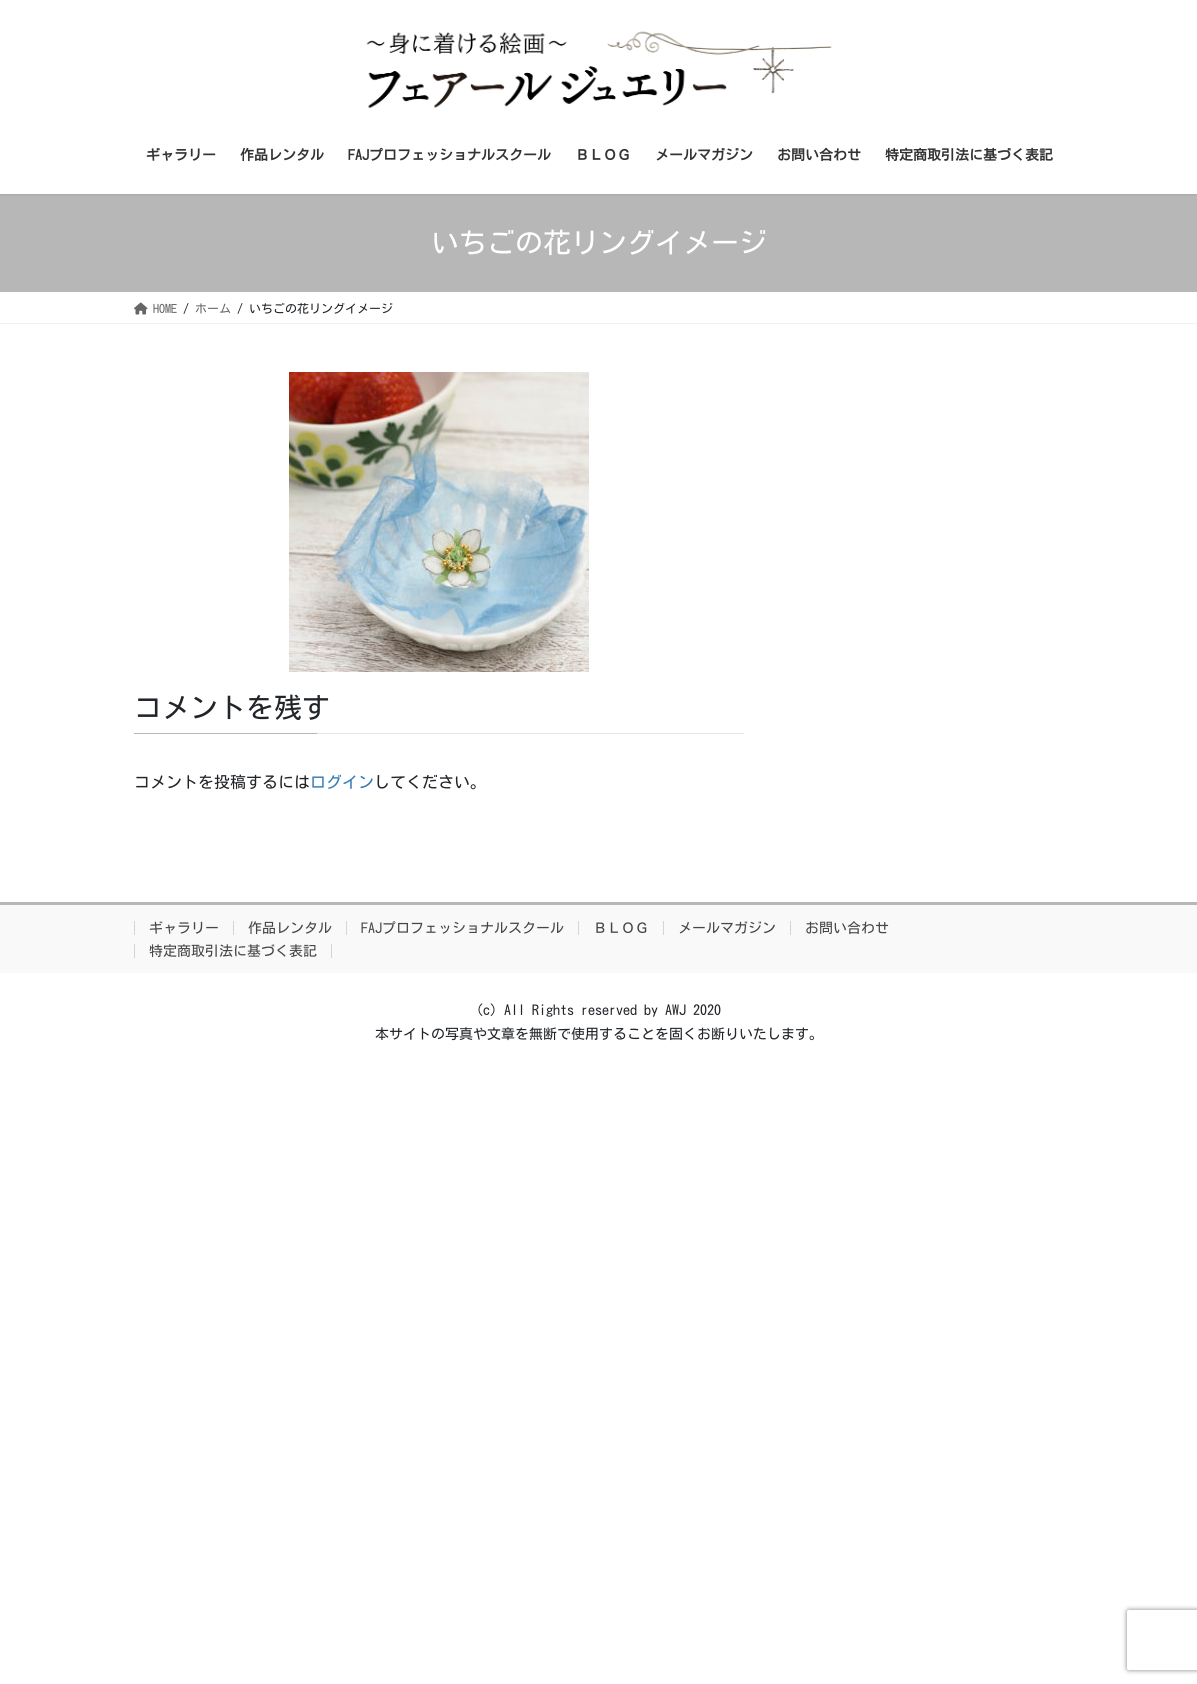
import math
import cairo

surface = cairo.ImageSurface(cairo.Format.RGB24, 1197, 1684)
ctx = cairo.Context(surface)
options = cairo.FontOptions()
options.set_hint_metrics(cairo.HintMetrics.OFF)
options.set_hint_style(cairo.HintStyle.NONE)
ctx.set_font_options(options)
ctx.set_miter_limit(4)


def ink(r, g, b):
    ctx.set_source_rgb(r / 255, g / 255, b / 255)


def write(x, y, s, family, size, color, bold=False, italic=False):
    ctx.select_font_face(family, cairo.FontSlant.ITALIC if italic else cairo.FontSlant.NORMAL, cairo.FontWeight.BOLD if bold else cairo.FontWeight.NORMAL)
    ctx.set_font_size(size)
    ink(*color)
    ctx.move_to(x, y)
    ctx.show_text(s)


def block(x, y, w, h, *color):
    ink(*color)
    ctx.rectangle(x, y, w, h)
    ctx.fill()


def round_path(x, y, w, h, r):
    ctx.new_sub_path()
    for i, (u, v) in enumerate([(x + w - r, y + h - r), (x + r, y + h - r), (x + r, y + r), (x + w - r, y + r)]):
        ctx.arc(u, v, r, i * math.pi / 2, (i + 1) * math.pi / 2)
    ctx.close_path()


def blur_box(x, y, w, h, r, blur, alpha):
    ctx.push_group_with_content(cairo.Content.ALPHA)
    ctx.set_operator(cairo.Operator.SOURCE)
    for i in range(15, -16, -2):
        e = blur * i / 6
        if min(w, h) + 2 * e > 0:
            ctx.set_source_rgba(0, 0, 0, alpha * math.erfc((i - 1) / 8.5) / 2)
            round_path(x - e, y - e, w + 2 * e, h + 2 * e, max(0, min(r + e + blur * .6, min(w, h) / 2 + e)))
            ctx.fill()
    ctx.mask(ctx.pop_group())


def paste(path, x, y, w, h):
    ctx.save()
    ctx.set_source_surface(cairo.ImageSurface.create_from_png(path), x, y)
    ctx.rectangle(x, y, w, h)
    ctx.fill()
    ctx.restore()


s1 = dict(family="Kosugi", size=14, color=(51, 51, 51), bold=True)
s2 = dict(family="Kosugi", size=28, color=(255, 255, 255))
s3 = dict(family="Kosugi", size=12, color=(102, 102, 102))
s4 = dict(family="Kosugi", size=12, color=(33, 37, 41))
s5 = dict(family="Kosugi", size=28, color=(33, 37, 41))
s6 = dict(family="Kosugi", size=16, color=(33, 37, 41))
s7 = dict(family="Kosugi", size=16, color=(51, 122, 183))
s8 = dict(family="Kosugi", size=14, color=(70, 70, 70))
s9 = dict(family="Kosugi", size=14, color=(33, 37, 41))

ink(255, 255, 255)
ctx.paint()
block(0, 194, 1197, 98, 183, 183, 183)
ctx.save()
ctx.rectangle(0, 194, 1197, 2)
ctx.clip()
ink(0, 0, 0)
blur_box(0, 1, 1197, 194, 0, 1.5, 0.1)
ctx.restore()
paste("pic1.png", 366, 31, 466, 77)
write(146, 160, "ギャラリー", **s1)
write(240, 160, "作品レンタル", **s1)
write(348, 160, "FAJプロフェッショナルスクール", **s1)
write(575, 160, "ＢＬＯＧ", **s1)
write(655, 160, "メールマガジン", **s1)
write(777, 160, "お問い合わせ", **s1)
write(885, 160, "特定商取引法に基づく表記", **s1)
write(431, 253, "いちごの花リングイメージ", **s2)
block(0, 323, 1197, 1, 242, 242, 242)
paste("pic2.png", 134, 302, 14, 13)
write(153, 313, "HOME", **s3)
write(183, 313, "/", **s4)
write(195, 313, "ホーム", **s3)
write(237, 313, "/ いちごの花リングイメージ", **s4)
paste("pic3.png", 289, 372, 300, 300)
block(317, 733, 427, 1, 230, 230, 230)
write(134, 718, "コメントを残す", **s5)
block(134, 733, 183, 1, 183, 183, 183)
write(134, 788, "コメントを投稿するには", **s6)
write(310, 788, "ログイン", **s7)
write(374, 788, "してください。", **s6)
block(0, 905, 1197, 68, 249, 249, 249)
block(0, 902, 1197, 3, 183, 183, 183)
write(149, 933, "ギャラリー", **s8)
block(134, 921, 1, 14, 212, 212, 212)
write(248, 933, "作品レンタル", **s8)
block(233, 921, 1, 14, 212, 212, 212)
write(361, 933, "FAJプロフェッショナルスクール", **s8)
block(346, 921, 1, 14, 212, 212, 212)
write(593, 933, "ＢＬＯＧ", **s8)
block(578, 921, 1, 14, 212, 212, 212)
write(678, 933, "メールマガジン", **s8)
block(663, 921, 1, 14, 212, 212, 212)
write(805, 933, "お問い合わせ", **s8)
block(790, 921, 1, 14, 212, 212, 212)
write(149, 956, "特定商取引法に基づく表記", **s8)
block(331, 944, 1, 14, 212, 212, 212)
block(134, 944, 1, 14, 212, 212, 212)
write(476, 1015, "(c) All Rights reserved by AWJ 2020", **s9)
write(375, 1039, "本サイトの写真や文章を無断で使用することを固くお断りいたします。", **s9)
ctx.save()
ctx.set_fill_rule(cairo.FillRule.EVEN_ODD)
ctx.new_path()
ctx.move_to(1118, 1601)
ctx.line_to(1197, 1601)
ctx.line_to(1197, 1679)
ctx.line_to(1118, 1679)
ctx.close_path()
ctx.move_to(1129, 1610)
ctx.line_to(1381, 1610)
ctx.curve_to(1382, 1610, 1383, 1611, 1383, 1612)
ctx.line_to(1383, 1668)
ctx.curve_to(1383, 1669, 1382, 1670, 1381, 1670)
ctx.line_to(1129, 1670)
ctx.curve_to(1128, 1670, 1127, 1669, 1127, 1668)
ctx.line_to(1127, 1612)
ctx.curve_to(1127, 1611, 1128, 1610, 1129, 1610)
ctx.close_path()
ctx.clip()
ink(128, 128, 128)
blur_box(1127, 1610, 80, 60, 2, 2.5, 1)
ctx.restore()
surface.write_to_png("screenshot.png")
